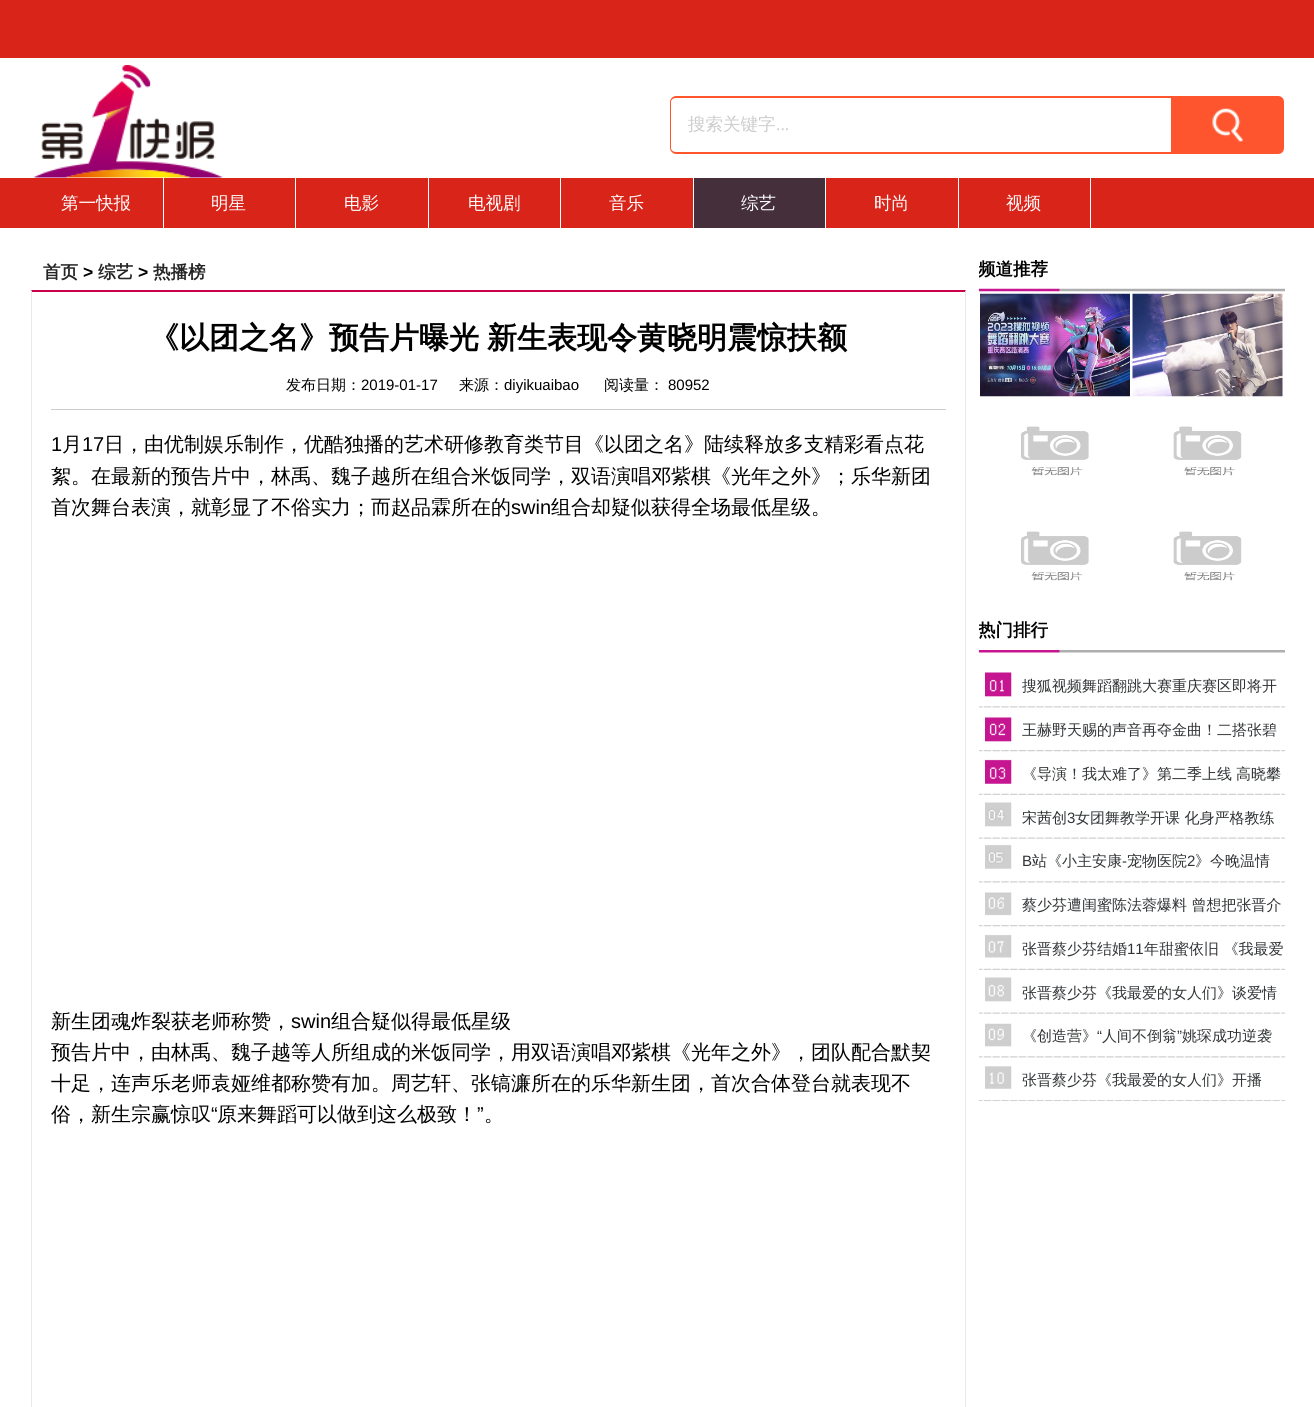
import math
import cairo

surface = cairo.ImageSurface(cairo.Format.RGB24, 1314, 1407)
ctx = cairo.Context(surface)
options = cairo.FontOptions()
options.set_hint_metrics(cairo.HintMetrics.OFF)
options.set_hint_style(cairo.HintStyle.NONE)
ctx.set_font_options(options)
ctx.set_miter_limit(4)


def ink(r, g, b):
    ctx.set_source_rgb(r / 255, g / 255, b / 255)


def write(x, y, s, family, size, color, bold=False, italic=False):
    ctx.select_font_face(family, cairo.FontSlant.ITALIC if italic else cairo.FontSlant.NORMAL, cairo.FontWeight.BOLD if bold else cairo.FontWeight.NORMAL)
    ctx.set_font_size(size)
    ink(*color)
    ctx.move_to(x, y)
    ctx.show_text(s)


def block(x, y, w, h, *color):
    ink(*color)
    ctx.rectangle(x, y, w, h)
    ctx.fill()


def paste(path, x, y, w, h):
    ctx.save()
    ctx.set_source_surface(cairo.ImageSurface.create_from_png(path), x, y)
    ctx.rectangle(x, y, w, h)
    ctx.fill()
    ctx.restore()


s1 = dict(family="WenQuanYi Zen Hei Medium", size=17.5, color=(204, 204, 204))
s2 = dict(family="Liberation Serif", size=17.5, color=(204, 204, 204))
s3 = dict(family="WenQuanYi Zen Hei Medium", size=17.5, color=(255, 255, 255))
s4 = dict(family="WenQuanYi Zen Hei", size=17.5, color=(37, 37, 37), bold=True)
s5 = dict(family="Liberation Sans", size=17.5, color=(0, 0, 0), bold=True)
s6 = dict(family="WenQuanYi Zen Hei", size=30, color=(0, 0, 0), bold=True)
s7 = dict(family="WenQuanYi Zen Hei Medium", size=15, color=(0, 0, 0))
s8 = dict(family="Liberation Sans", size=15, color=(0, 0, 0))
s9 = dict(family="Liberation Sans", size=20, color=(0, 0, 0))
s10 = dict(family="WenQuanYi Zen Hei Medium", size=20, color=(0, 0, 0))
s11 = dict(family="WenQuanYi Zen Hei", size=17.5, color=(0, 0, 0), bold=True)
s12 = dict(family="WenQuanYi Zen Hei Medium", size=15, color=(48, 51, 53))
s13 = dict(family="Liberation Sans", size=15, color=(48, 51, 53))

ink(255, 255, 255)
ctx.paint()
block(0, 0, 1314, 58, 217, 36, 26)
paste("pic1.png", 33, 65, 190, 113)
ink(255, 85, 46)
ctx.set_fill_rule(cairo.FillRule.EVEN_ODD)
ctx.new_path()
ctx.move_to(676, 96)
ctx.line_to(1171, 96)
ctx.line_to(1171, 154)
ctx.line_to(676, 154)
ctx.curve_to(673, 154, 670, 151, 670, 148)
ctx.line_to(670, 102)
ctx.curve_to(670, 99, 673, 96, 676, 96)
ctx.close_path()
ctx.move_to(676, 98)
ctx.line_to(1171, 98)
ctx.line_to(1171, 152)
ctx.line_to(676, 152)
ctx.curve_to(673, 152, 671, 150, 671, 148)
ctx.line_to(671, 102)
ctx.curve_to(671, 100, 673, 98, 676, 98)
ctx.close_path()
ctx.fill()
write(688, 130, "搜索关键字", **s1)
write(776, 130, "...", **s2)
ink(255, 85, 46)
ctx.new_path()
ctx.move_to(1171, 96)
ctx.line_to(1278, 96)
ctx.curve_to(1281.5, 96, 1284, 98.5, 1284, 102)
ctx.line_to(1284, 148)
ctx.curve_to(1284, 151.5, 1281.5, 154, 1278, 154)
ctx.line_to(1171, 154)
ctx.close_path()
ctx.fill()
paste("pic2.png", 1212, 108, 31, 34)
block(0, 178, 1314, 50, 217, 36, 26)
block(163, 178, 1, 50, 255, 255, 255)
write(61, 209, "第一快报", **s3)
block(295, 178, 1, 50, 255, 255, 255)
write(211, 209, "明星", **s3)
block(428, 178, 1, 50, 255, 255, 255)
write(344, 209, "电影", **s3)
block(560, 178, 1, 50, 255, 255, 255)
write(468, 209, "电视剧", **s3)
block(693, 178, 1, 50, 255, 255, 255)
write(609, 209, "音乐", **s3)
block(694, 178, 131, 50, 68, 47, 58)
block(825, 178, 1, 50, 255, 255, 255)
write(741, 209, "综艺", **s3)
block(958, 178, 1, 50, 255, 255, 255)
write(874, 209, "时尚", **s3)
block(1090, 178, 1, 50, 255, 255, 255)
write(1006, 209, "视频", **s3)
write(43, 278, "首页", **s4)
write(83, 278, ">", **s5)
write(98, 278, "综艺", **s4)
write(138, 278, ">", **s5)
write(153, 278, "热播榜", **s4)
ink(203, 0, 75)
ctx.set_fill_rule(cairo.FillRule.WINDING)
ctx.new_path()
ctx.move_to(31, 290)
ctx.line_to(966, 290)
ctx.line_to(965, 292)
ctx.line_to(32, 292)
ctx.close_path()
ctx.fill()
ink(233, 233, 233)
ctx.new_path()
ctx.move_to(966, 290)
ctx.line_to(966, 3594)
ctx.line_to(965, 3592)
ctx.line_to(965, 292)
ctx.close_path()
ctx.fill()
ctx.new_path()
ctx.move_to(31, 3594)
ctx.line_to(31, 290)
ctx.line_to(32, 292)
ctx.line_to(32, 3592)
ctx.close_path()
ctx.fill()
block(51, 409, 895, 1, 204, 204, 204)
write(149, 348, "《以团之名》预告片曝光", **s6)
write(487, 348, "新生表现令黄晓明震惊扶额", **s6)
write(286, 390, "发布日期：", **s7)
write(361, 390, "2019-01-17", **s8)
write(459, 390, "来源：", **s7)
write(504, 390, "diyikuaibao", **s8)
write(604, 390, "阅读量：", **s7)
write(668, 390, "80952", **s8)
write(51, 451, "1", **s9)
write(62, 451, "月", **s10)
write(82, 451, "17", **s9)
write(104, 451, "日，由优制娱乐制作，优酷独播的艺术研修教育类节目《以团之名》陆续释放多支精彩看点花", **s10)
write(51, 483, "絮。在最新的预告片中，林禹、魏子越所在组合米饭同学，双语演唱邓紫棋《光年之外》；乐华新团", **s10)
write(51, 514, "首次舞台表演，就彰显了不俗实力；而赵品霖所在的", **s10)
write(511, 514, "swin", **s9)
write(551, 514, "组合却疑似获得全场最低星级。", **s10)
write(51, 1028, "新生团魂炸裂获老师称赞，", **s10)
write(291, 1028, "swin", **s9)
write(331, 1028, "组合疑似得最低星级", **s10)
write(51, 1059, "预告片中，由林禹、魏子越等人所组成的米饭同学，用双语演唱邓紫棋《光年之外》，团队配合默契", **s10)
write(51, 1090, "十足，连声乐老师袁娅维都称赞有加。周艺轩、张镐濂所在的乐华新生团，首次合体登台就表现不", **s10)
write(51, 1121, "俗，新生宗赢惊叹", **s10)
write(211, 1121, "“", **s9)
write(217, 1121, "原来舞蹈可以做到这么极致！", **s10)
write(477, 1121, "”", **s9)
write(484, 1121, "。", **s10)
paste("pic3.png", 978, 288, 307, 4)
ctx.save()
ctx.rectangle(979, 248, 306, 853)
ctx.clip()
write(978, 275, "频道推荐", **s11)
ctx.restore()
paste("pic4.png", 980, 293, 150, 104)
paste("pic5.png", 1132, 293, 151, 104)
paste("pic6.png", 1021, 426, 68, 50)
paste("pic7.png", 1173, 426, 69, 50)
paste("pic6.png", 1021, 531, 68, 50)
paste("pic7.png", 1173, 531, 69, 50)
paste("pic8.png", 978, 650, 307, 3)
ctx.save()
ctx.rectangle(979, 248, 306, 853)
ctx.clip()
write(978, 636, "热门排行", **s11)
ctx.restore()
paste("pic9.png", 985, 672, 27, 417)
paste("pic10.png", 979, 706, 306, 2)
write(1022, 691, "搜狐视频舞蹈翻跳大赛重庆赛区即将开", **s12)
paste("pic11.png", 979, 750, 306, 2)
write(1022, 735, "王赫野天赐的声音再夺金曲！二搭张碧", **s12)
paste("pic12.png", 979, 793, 306, 2)
write(1022, 779, "《导演！我太难了》第二季上线", **s12)
write(1236, 779, "高晓攀", **s12)
paste("pic13.png", 979, 837, 306, 2)
write(1022, 823, "宋茜创", **s12)
write(1067, 823, "3", **s13)
write(1075, 823, "女团舞教学开课 化身严格教练", **s12)
paste("pic10.png", 979, 881, 306, 2)
write(1022, 866, "B", **s13)
write(1032, 866, "站《小主安康", **s12)
write(1122, 866, "-", **s13)
write(1127, 866, "宠物医院", **s12)
write(1187, 866, "2", **s13)
write(1195, 866, "》今晚温情", **s12)
paste("pic11.png", 979, 925, 306, 2)
write(1022, 910, "蔡少芬遭闺蜜陈法蓉爆料 曾想把张晋介", **s12)
paste("pic12.png", 979, 968, 306, 2)
write(1022, 954, "张晋蔡少芬结婚", **s12)
write(1127, 954, "11", **s13)
write(1144, 954, "年甜蜜依旧 《我最爱", **s12)
paste("pic13.png", 979, 1012, 306, 2)
write(1022, 998, "张晋蔡少芬《我最爱的女人们》谈爱情", **s12)
paste("pic10.png", 979, 1056, 306, 2)
write(1022, 1041, "《创造营》", **s12)
write(1097, 1041, "“", **s13)
write(1102, 1041, "人间不倒翁", **s12)
write(1177, 1041, "”", **s13)
write(1182, 1041, "姚琛成功逆袭", **s12)
paste("pic14.png", 979, 1100, 306, 1)
write(1022, 1085, "张晋蔡少芬《我最爱的女人们》开播", **s12)
surface.write_to_png("screenshot.png")
